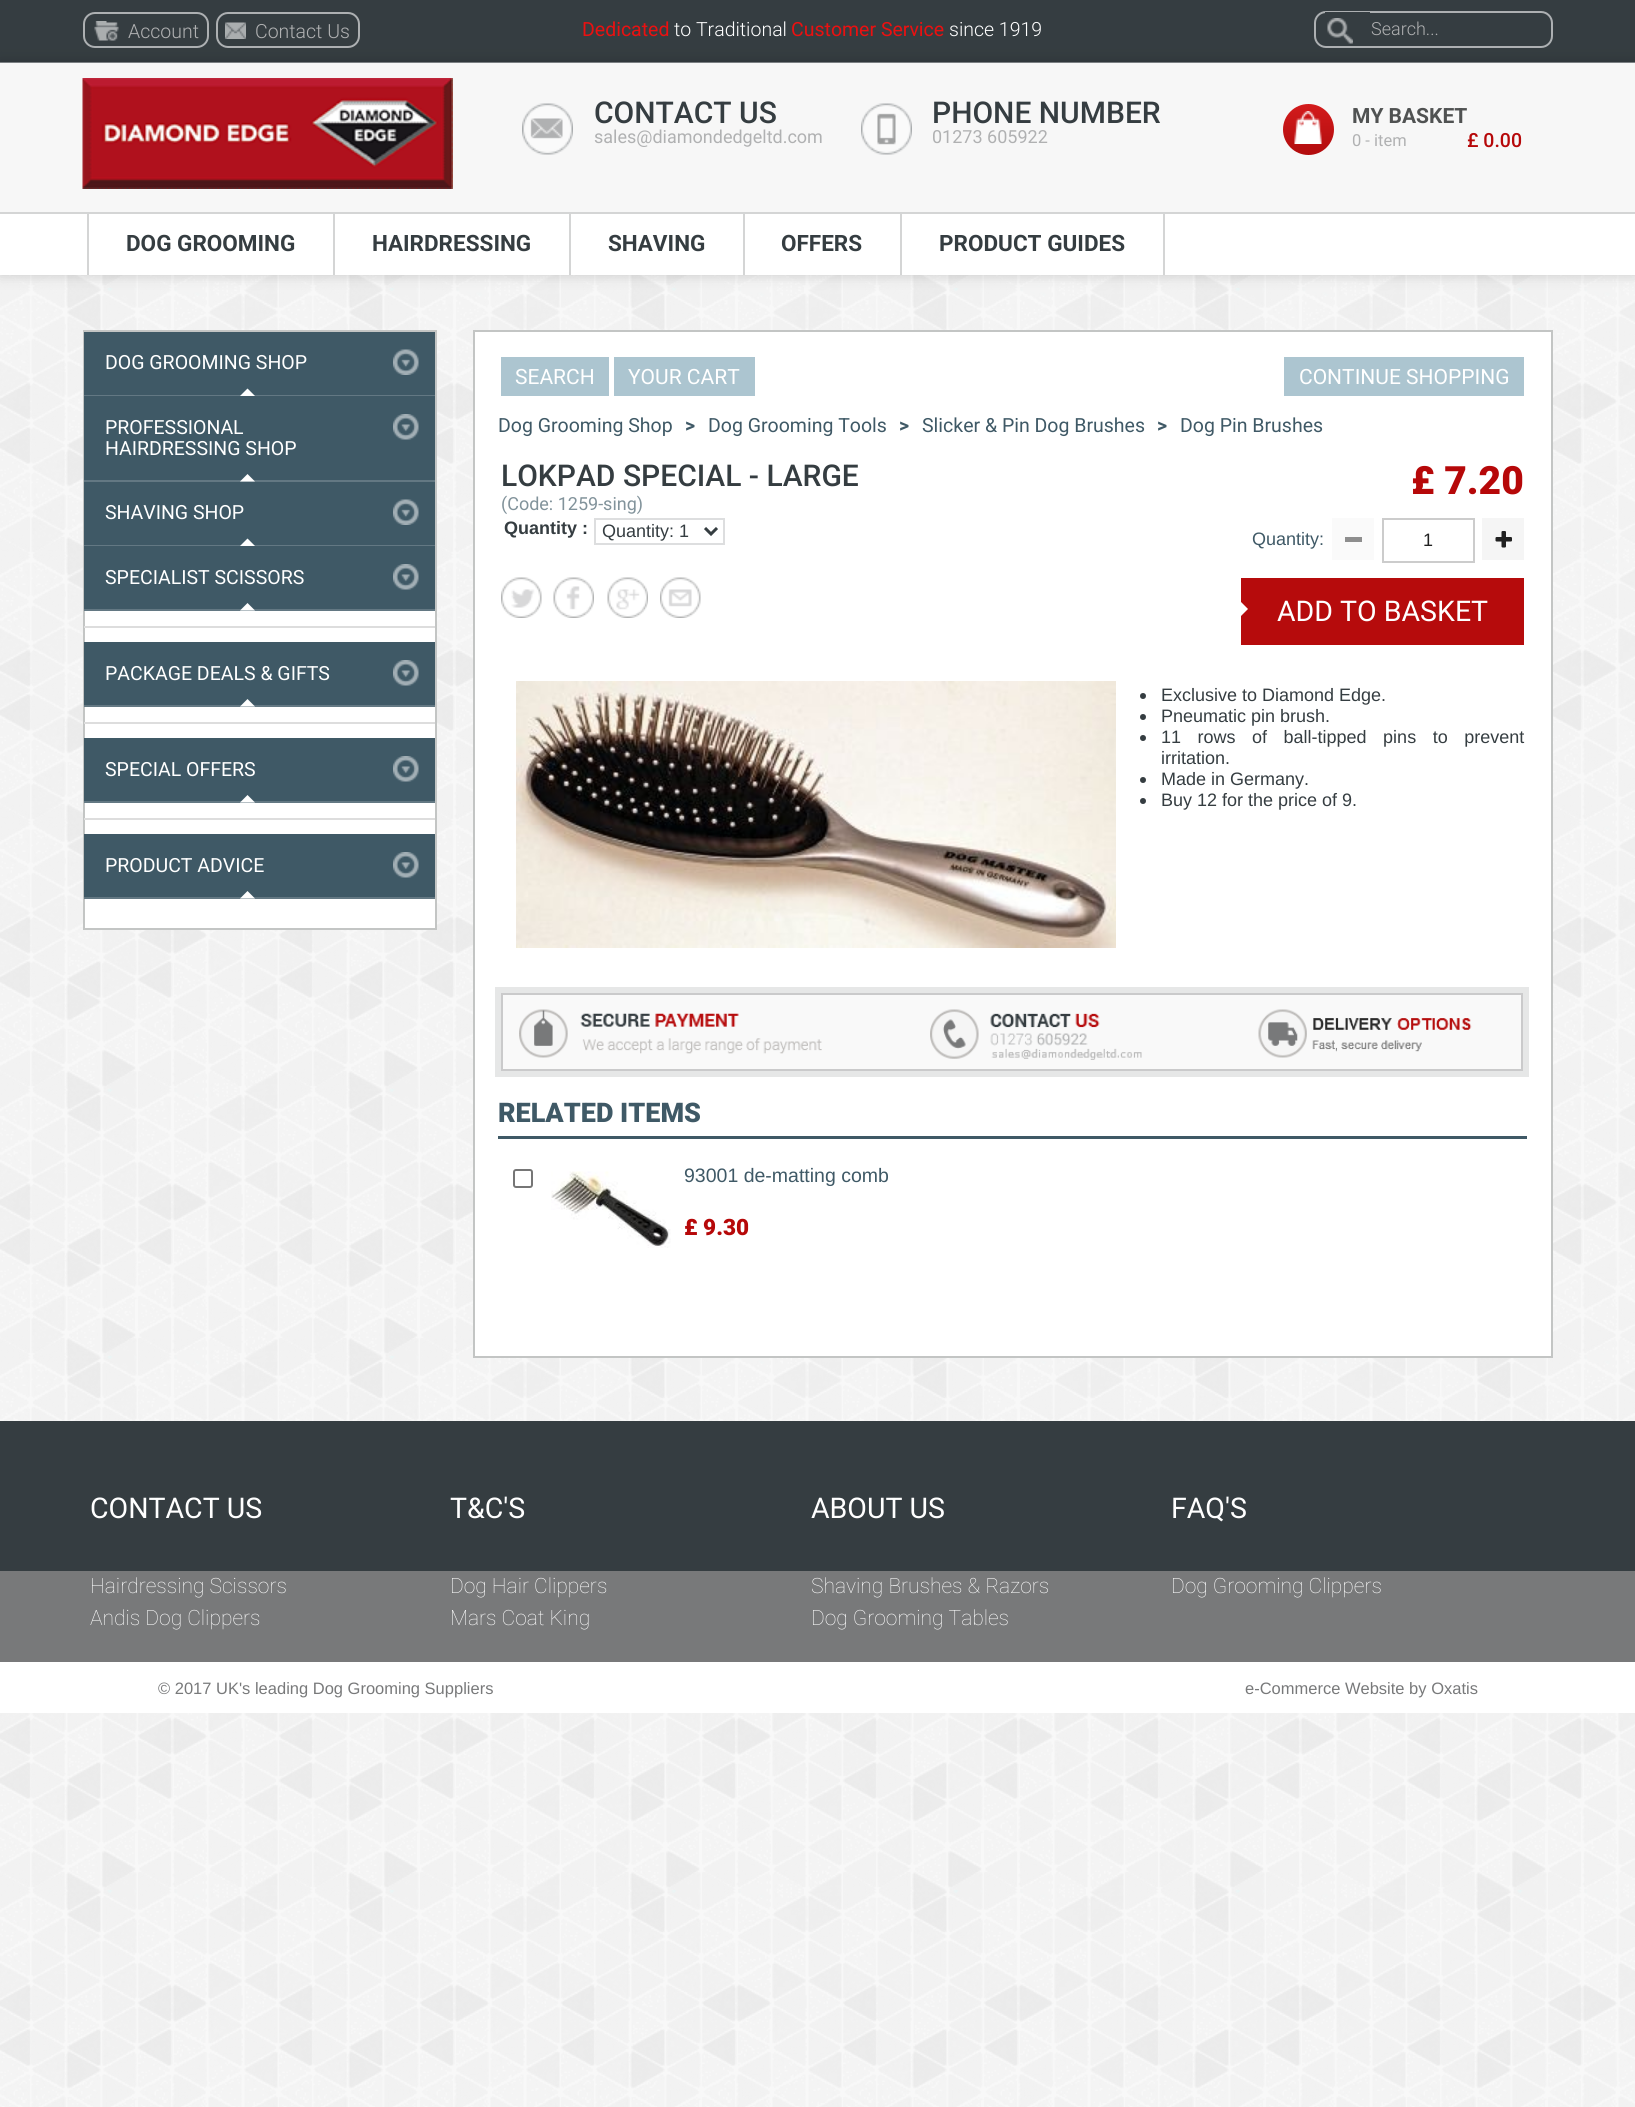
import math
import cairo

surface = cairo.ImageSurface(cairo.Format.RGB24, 1635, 2107)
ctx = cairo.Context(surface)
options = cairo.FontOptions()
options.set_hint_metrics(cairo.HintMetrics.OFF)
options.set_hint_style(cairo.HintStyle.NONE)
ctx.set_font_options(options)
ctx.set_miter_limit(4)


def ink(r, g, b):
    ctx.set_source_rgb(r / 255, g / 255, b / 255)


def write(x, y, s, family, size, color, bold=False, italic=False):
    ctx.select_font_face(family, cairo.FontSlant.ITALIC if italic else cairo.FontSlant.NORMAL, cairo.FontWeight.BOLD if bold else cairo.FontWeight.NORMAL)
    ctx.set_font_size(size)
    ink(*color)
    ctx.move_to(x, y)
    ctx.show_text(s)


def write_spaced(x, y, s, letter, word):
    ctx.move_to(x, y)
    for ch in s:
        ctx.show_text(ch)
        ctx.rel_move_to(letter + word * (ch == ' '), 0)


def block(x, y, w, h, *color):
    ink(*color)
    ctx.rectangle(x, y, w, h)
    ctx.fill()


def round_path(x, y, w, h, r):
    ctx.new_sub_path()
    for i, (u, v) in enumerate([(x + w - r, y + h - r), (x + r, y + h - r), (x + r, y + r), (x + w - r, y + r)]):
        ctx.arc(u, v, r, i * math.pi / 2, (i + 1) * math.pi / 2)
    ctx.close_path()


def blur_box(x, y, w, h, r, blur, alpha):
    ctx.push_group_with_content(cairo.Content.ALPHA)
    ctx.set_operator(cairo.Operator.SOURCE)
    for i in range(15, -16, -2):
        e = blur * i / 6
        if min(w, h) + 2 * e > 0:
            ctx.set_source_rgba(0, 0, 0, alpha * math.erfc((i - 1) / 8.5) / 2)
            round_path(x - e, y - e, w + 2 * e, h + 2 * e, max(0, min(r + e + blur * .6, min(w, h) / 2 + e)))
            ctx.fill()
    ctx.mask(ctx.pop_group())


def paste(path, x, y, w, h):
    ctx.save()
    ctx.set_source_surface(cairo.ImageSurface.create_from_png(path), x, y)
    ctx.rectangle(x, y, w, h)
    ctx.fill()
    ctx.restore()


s1 = dict(family="Roboto Light", size=19.5, color=(176, 177, 178))
s2 = dict(family="Roboto", size=19.5, color=(235, 16, 16))
s3 = dict(family="Roboto Light", size=19.5, color=(255, 255, 255))
s4 = dict(family="Roboto Light", size=18, color=(176, 177, 178))
s5 = dict(family="Roboto Medium", size=30, color=(53, 61, 65))
s6 = dict(family="Roboto", size=18, color=(176, 177, 178))
s7 = dict(family="Roboto", size=22.5, color=(53, 61, 65), bold=True)
s8 = dict(family="Roboto", size=19.5, color=(255, 255, 255))
s9 = dict(family="Roboto", size=21, color=(255, 255, 255))
s10 = dict(family="Roboto", size=19.5, color=(63, 89, 102))
s11 = dict(family="Roboto", size=19.5, color=(63, 89, 102), bold=True)
s12 = dict(family="Roboto", size=18, color=(130, 147, 155))
s13 = dict(family="Liberation Sans", size=18, color=(53, 61, 65), bold=True)
s14 = dict(family="Liberation Sans", size=18, color=(53, 61, 65))
s15 = dict(family="Roboto Black", size=39, color=(182, 8, 9))
s16 = dict(family="Liberation Sans", size=18, color=(63, 89, 102))
s17 = dict(family="Liberation Sans", size=18, color=(33, 33, 33))
s18 = dict(family="Roboto", size=28.5, color=(255, 255, 255))
s19 = dict(family="Roboto Black", size=27, color=(63, 89, 102))
s20 = dict(family="Liberation Sans", size=19.5, color=(63, 89, 102))
s21 = dict(family="Roboto Black", size=22.5, color=(182, 8, 9))
s22 = dict(family="Roboto Thin", size=21, color=(255, 255, 255))
s23 = dict(family="Liberation Sans", size=16.5, color=(120, 121, 122))
s24 = dict(family="Roboto", size=21, color=(80, 82, 82), bold=True)
s25 = dict(family="Roboto", size=16.5, color=(176, 177, 178))
s26 = dict(family="Roboto Medium", size=19.5, color=(182, 8, 9))

ink(248, 248, 248)
ctx.paint()
paste("pic1.png", 0, 275, 1635, 1832)
block(0, 0, 1635, 62, 53, 61, 65)
ink(0, 0, 0)
blur_box(0, 62, 1635, 213, 0, 7, 0.17)
block(0, 214, 1635, 61, 255, 255, 255)
block(0, 62, 1635, 1, 123, 128, 131)
round_path(84, 13, 124, 34, 11)
ink(173, 176, 178)
ctx.stroke()
paste("pic2.png", 94, 21, 25, 20)
write(128, 38, "Account", **s1)
round_path(217, 13, 142, 34, 11)
ink(173, 176, 178)
ctx.stroke()
paste("pic3.png", 225, 22, 21, 17)
write(255, 38, "Contact Us", **s1)
write(582, 36, "Dedicated", **s2)
write(674, 36, "to Traditional", **s3)
write(791, 36, "Customer Service", **s2)
write(949, 36, "since 1919", **s3)
round_path(1315, 12, 237, 35, 11)
ink(173, 176, 178)
ctx.stroke()
block(1325, 12, 45, 2, 53, 61, 65)
paste("pic4.png", 1327, 18, 26, 26)
write(1371, 35, "Search...", **s4)
block(0, 63, 1635, 149, 247, 247, 247)
paste("pic5.png", 82, 78, 371, 111)
paste("pic6.png", 522, 103, 51, 52)
write(594, 123, "CONTACT US", **s5)
write(594, 143, "sales@diamondedgeltd.com", **s6)
paste("pic7.png", 861, 103, 51, 52)
write(932, 123, "PHONE NUMBER", **s5)
write(932, 143, "01273 605922", **s6)
block(87, 213, 2, 62, 212, 213, 213)
block(333, 213, 2, 62, 212, 213, 213)
write(126, 251, "DOG GROOMING", **s7)
block(569, 213, 2, 62, 212, 213, 213)
write(372, 251, "HAIRDRESSING", **s7)
block(743, 213, 2, 62, 212, 213, 213)
write(608, 251, "SHAVING", **s7)
block(900, 213, 2, 62, 212, 213, 213)
write(781, 251, "OFFERS", **s7)
block(1163, 213, 2, 62, 212, 213, 213)
write(939, 251, "PRODUCT GUIDES", **s7)
block(0, 212, 1635, 2, 212, 213, 213)
block(85, 611, 350, 317, 255, 255, 255)
ctx.rectangle(84, 331, 352, 598)
ink(195, 197, 196)
ctx.stroke()
block(84, 332, 351, 63, 63, 89, 102)
paste("pic8.png", 393, 349, 26, 26)
block(84, 395, 351, 1, 99, 120, 131)
write(105, 369, "DOG GROOMING SHOP", **s8)
ctx.new_path()
ctx.move_to(255, 396)
ctx.line_to(240, 396)
ctx.line_to(247.5, 388.5)
ctx.close_path()
ctx.fill()
block(84, 396, 351, 84, 63, 89, 102)
paste("pic9.png", 393, 414, 26, 26)
block(84, 480, 351, 2, 99, 120, 131)
write(105, 434, "PROFESSIONAL", **s8)
write(105, 455, "HAIRDRESSING SHOP", **s8)
ctx.new_path()
ctx.move_to(255, 481.5)
ctx.line_to(240, 481.5)
ctx.line_to(247.5, 474)
ctx.close_path()
ctx.fill()
block(84, 482, 351, 63, 63, 89, 102)
paste("pic8.png", 393, 499, 26, 26)
block(84, 545, 351, 1, 99, 120, 131)
write(105, 519, "SHAVING SHOP", **s8)
ctx.new_path()
ctx.move_to(255, 546)
ctx.line_to(240, 546)
ctx.line_to(247.5, 538.5)
ctx.close_path()
ctx.fill()
block(84, 546, 351, 63, 63, 89, 102)
paste("pic9.png", 393, 564, 26, 26)
block(84, 609, 351, 2, 99, 120, 131)
write(105, 584, "SPECIALIST SCISSORS", **s8)
ctx.new_path()
ctx.move_to(255, 610.5)
ctx.line_to(240, 610.5)
ctx.line_to(247.5, 603)
ctx.close_path()
ctx.fill()
block(84, 626, 351, 2, 221, 221, 221)
block(84, 642, 351, 63, 63, 89, 102)
paste("pic9.png", 393, 660, 26, 26)
block(84, 705, 351, 2, 99, 120, 131)
write(105, 680, "PACKAGE DEALS & GIFTS", **s8)
ctx.new_path()
ctx.move_to(255, 706.5)
ctx.line_to(240, 706.5)
ctx.line_to(247.5, 699)
ctx.close_path()
ctx.fill()
block(84, 722, 351, 2, 221, 221, 221)
block(84, 738, 351, 63, 63, 89, 102)
paste("pic9.png", 393, 756, 26, 26)
block(84, 801, 351, 2, 99, 120, 131)
write(105, 776, "SPECIAL OFFERS", **s8)
ctx.new_path()
ctx.move_to(255, 802.5)
ctx.line_to(240, 802.5)
ctx.line_to(247.5, 795)
ctx.close_path()
ctx.fill()
block(84, 818, 351, 2, 221, 221, 221)
block(84, 834, 351, 63, 63, 89, 102)
paste("pic9.png", 393, 852, 26, 26)
block(84, 897, 351, 2, 99, 120, 131)
write(105, 872, "PRODUCT ADVICE", **s8)
ctx.new_path()
ctx.move_to(255, 898.5)
ctx.line_to(240, 898.5)
ctx.line_to(247.5, 891)
ctx.close_path()
ctx.fill()
ctx.rectangle(474, 331, 1078, 1026)
ctx.fill_preserve()
ink(195, 197, 196)
ctx.stroke()
block(501, 357, 108, 39, 172, 197, 208)
write(515, 384, "SEARCH", **s9)
block(614, 357, 141, 39, 172, 197, 208)
write(628, 384, "YOUR CART", **s9)
block(1284, 357, 240, 39, 172, 197, 208)
write(1299, 384, "CONTINUE SHOPPING", **s9)
write(498, 432, "Dog Grooming Shop", **s10)
write(685, 432, ">", **s11)
write(708, 432, "Dog Grooming Tools", **s10)
write(899, 432, ">", **s11)
write(922, 432, "Slicker & Pin Dog Brushes", **s10)
write(1157, 432, ">", **s11)
write(1180, 432, "Dog Pin Brushes", **s10)
write(501, 486, "LOKPAD SPECIAL - LARGE", **s5)
write(501, 510, "(Code: 1259-sing)", **s12)
write(504, 534, "Quantity :", **s13)
ctx.rectangle(595, 519, 129, 25)
ink(221, 222, 223)
ctx.stroke()
ctx.new_path()
ctx.move_to(705, 528)
ctx.line_to(711, 534)
ctx.line_to(717, 528)
ink(53, 61, 65)
ctx.set_line_width(3)
ctx.stroke()
write(602, 537, "Quantity: 1", **s14)
paste("pic10.png", 501, 577, 41, 41)
paste("pic11.png", 553, 577, 41, 41)
paste("pic12.png", 607, 577, 41, 41)
paste("pic13.png", 660, 577, 41, 41)
write(1411, 494, "£ 7.20", **s15)
write(1252, 545, "Quantity:", **s16)
block(1332, 518, 42, 42, 250, 250, 250)
block(1345, 537, 17, 5, 142, 142, 142)
ctx.rectangle(1383, 519, 91, 43)
ink(204, 204, 204)
ctx.set_line_width(2)
ctx.stroke()
write(1423, 546, "1", **s17)
block(1482, 518, 42, 42, 245, 245, 245)
paste("pic14.png", 1495, 531, 17, 17)
block(1241, 578, 283, 67, 182, 11, 12)
ink(255, 255, 255)
ctx.new_path()
ctx.move_to(1240.5, 616.5)
ctx.line_to(1240.5, 601.5)
ctx.line_to(1248, 609)
ctx.close_path()
ctx.fill()
write(1277, 621, "ADD TO BASKET", **s18)
paste("pic15.png", 516, 681, 600, 267)
ink(53, 61, 65)
ctx.arc(1143, 696, 3, 0, 2 * math.pi)
ctx.fill()
write(1161, 701, "Exclusive to Diamond Edge.", **s14)
ctx.new_path()
ctx.arc(1143, 717, 3, 0, 2 * math.pi)
ctx.fill()
write(1161, 722, "Pneumatic pin brush.", **s14)
ctx.new_path()
ctx.arc(1143, 738, 3, 0, 2 * math.pi)
ctx.fill()
write_spaced(1161, 743, "11 rows of ball-tipped pins to prevent", 0, 11.5)
write(1161, 764, "irritation.", **s14)
ctx.new_path()
ctx.arc(1143, 780, 3, 0, 2 * math.pi)
ctx.fill()
write(1161, 785, "Made in Germany.", **s14)
ctx.new_path()
ctx.arc(1143, 801, 3, 0, 2 * math.pi)
ctx.fill()
write(1161, 806, "Buy 12 for the price of 9.", **s14)
ctx.rectangle(498, 990, 1028, 84)
ink(230, 231, 231)
ctx.set_line_width(6)
ctx.stroke()
ink(249, 249, 249)
ctx.rectangle(502, 994, 1020, 76)
ctx.fill_preserve()
ink(202, 202, 203)
ctx.set_line_width(2)
ctx.stroke()
paste("pic16.png", 519, 1009, 303, 49)
paste("pic17.png", 930, 1009, 212, 51)
paste("pic18.png", 1258, 1009, 214, 49)
block(498, 1136, 1029, 3, 63, 89, 102)
write(498, 1122, "RELATED ITEMS", **s19)
round_path(514, 1170, 18, 17, 2)
ink(118, 118, 118)
ctx.stroke()
paste("pic19.png", 551, 1171, 120, 77)
write(684, 1182, "93001 de-matting comb", **s20)
write(684, 1235, "£ 9.30", **s21)
block(0, 1421, 1635, 150, 53, 61, 65)
write(90, 1518, "CONTACT US", **s18)
write(450, 1518, "T&C'S", **s18)
write(811, 1518, "ABOUT US", **s18)
write(1171, 1518, "FAQ'S", **s18)
block(0, 1571, 1635, 91, 120, 121, 122)
write(90, 1593, "Hairdressing Scissors", **s22)
write(450, 1593, "Dog Hair Clippers", **s22)
write(811, 1593, "Shaving Brushes & Razors", **s22)
write(1171, 1593, "Dog Grooming Clippers", **s22)
write(90, 1625, "Andis Dog Clippers", **s22)
write(450, 1625, "Mars Coat King", **s22)
write(811, 1625, "Dog Grooming Tables", **s22)
block(0, 1662, 1635, 51, 255, 255, 255)
write(158, 1694, "© 2017 UK's leading Dog Grooming Suppliers", **s23)
write(1245, 1694, "e-Commerce Website by Oxatis", **s23)
gradient = cairo.LinearGradient(1308, 104, 1308, 155)
gradient.add_color_stop_rgba(0, 0.827, 0.106, 0.11, 1)
gradient.add_color_stop_rgba(1, 0.698, 0.047, 0.051, 1)
ctx.set_source(gradient)
ctx.new_path()
ctx.arc(1308.5, 129.5, 25.5, 0, 2 * math.pi)
ctx.fill()
paste("pic20.png", 1294, 111, 28, 33)
write(1352, 123, "MY BASKET", **s24)
write(1352, 146, "0 - item", **s25)
write(1467, 147, "£ 0.00", **s26)
surface.write_to_png("screenshot.png")
